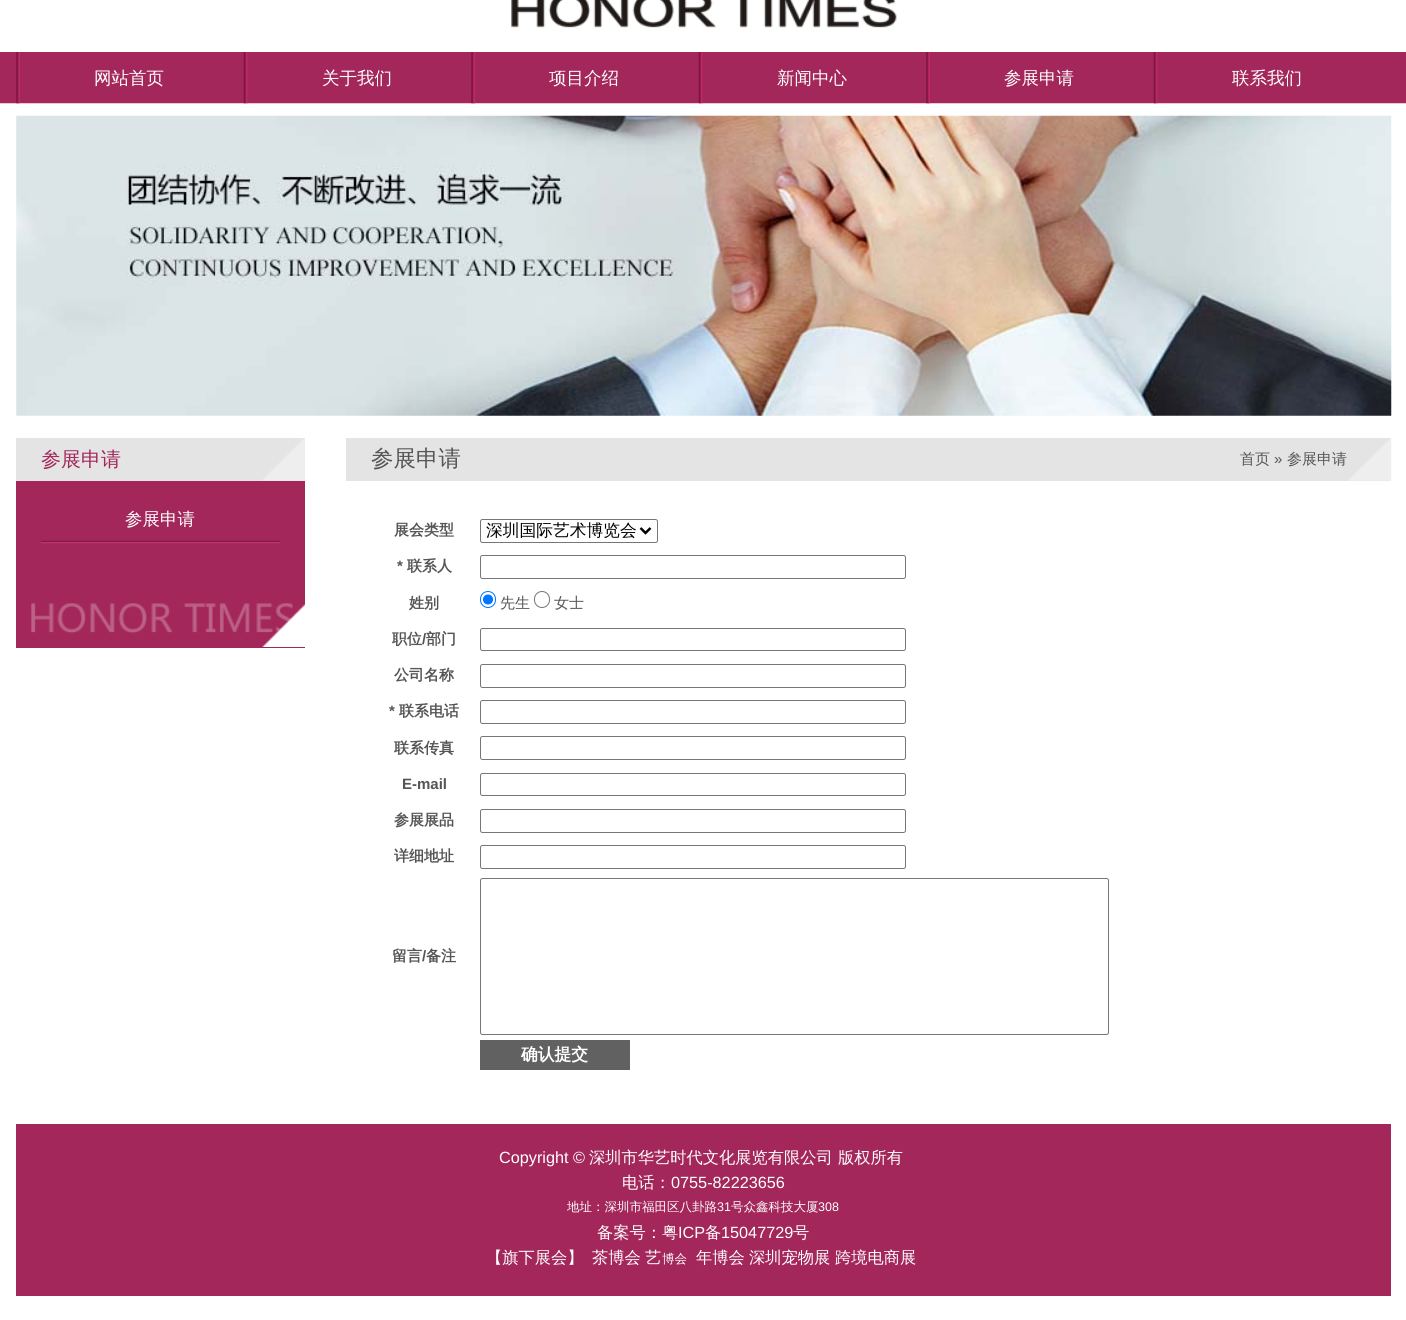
import math
import cairo

surface = cairo.ImageSurface(cairo.Format.RGB24, 1406, 1320)
ctx = cairo.Context(surface)
options = cairo.FontOptions()
options.set_hint_metrics(cairo.HintMetrics.OFF)
options.set_hint_style(cairo.HintStyle.NONE)
ctx.set_font_options(options)
ctx.set_miter_limit(4)


def ink(r, g, b):
    ctx.set_source_rgb(r / 255, g / 255, b / 255)


def write(x, y, s, family, size, color, bold=False, italic=False):
    ctx.select_font_face(family, cairo.FontSlant.ITALIC if italic else cairo.FontSlant.NORMAL, cairo.FontWeight.BOLD if bold else cairo.FontWeight.NORMAL)
    ctx.set_font_size(size)
    ink(*color)
    ctx.move_to(x, y)
    ctx.show_text(s)


def block(x, y, w, h, *color):
    ink(*color)
    ctx.rectangle(x, y, w, h)
    ctx.fill()


def round_path(x, y, w, h, r):
    ctx.new_sub_path()
    for i, (u, v) in enumerate([(x + w - r, y + h - r), (x + r, y + h - r), (x + r, y + r), (x + w - r, y + r)]):
        ctx.arc(u, v, r, i * math.pi / 2, (i + 1) * math.pi / 2)
    ctx.close_path()


def paste(path, x, y, w, h):
    ctx.save()
    ctx.set_source_surface(cairo.ImageSurface.create_from_png(path), x, y)
    ctx.rectangle(x, y, w, h)
    ctx.fill()
    ctx.restore()


s1 = dict(family="WenQuanYi Zen Hei Medium", size=17.5, color=(255, 255, 255))
s2 = dict(family="WenQuanYi Zen Hei Medium", size=20, color=(163, 39, 90))
s3 = dict(family="WenQuanYi Zen Hei Medium", size=22.5, color=(85, 85, 85))
s4 = dict(family="WenQuanYi Zen Hei Medium", size=15, color=(85, 85, 85))
s5 = dict(family="Liberation Sans", size=15, color=(85, 85, 85))
s6 = dict(family="WenQuanYi Zen Hei", size=15, color=(85, 85, 85), bold=True)
s7 = dict(family="WenQuanYi Zen Hei Medium", size=16.75, color=(0, 0, 0))
s8 = dict(family="Liberation Sans", size=15, color=(85, 85, 85), bold=True)
s9 = dict(family="WenQuanYi Zen Hei", size=16.75, color=(255, 255, 255), bold=True)
s10 = dict(family="Liberation Sans", size=16.25, color=(255, 255, 255))
s11 = dict(family="WenQuanYi Zen Hei Medium", size=16.25, color=(255, 255, 255))
s12 = dict(family="WenQuanYi Zen Hei Medium", size=12.5, color=(255, 255, 255))
s13 = dict(family="Liberation Sans", size=12.5, color=(255, 255, 255))

ink(255, 255, 255)
ctx.paint()
paste("pic1.png", 511, 0, 386, 28)
paste("pic2.png", 0, 52, 1406, 52)
paste("pic3.png", 16, 52, 4, 52)
write(94, 84, "网站首页", **s1)
paste("pic4.png", 243, 52, 5, 52)
write(322, 84, "关于我们", **s1)
paste("pic3.png", 471, 52, 4, 52)
write(549, 84, "项目介绍", **s1)
paste("pic4.png", 698, 52, 5, 52)
write(777, 84, "新闻中心", **s1)
paste("pic3.png", 926, 52, 4, 52)
write(1004, 84, "参展申请", **s1)
paste("pic4.png", 1153, 52, 5, 52)
write(1232, 84, "联系我们", **s1)
paste("pic5.png", 16, 115, 1376, 301)
block(16, 481, 289, 167, 163, 39, 90)
block(16, 438, 289, 43, 228, 228, 228)
write(41, 466, "参展申请", **s2)
paste("pic6.png", 262, 438, 43, 43)
paste("pic7.png", 41, 540, 239, 4)
write(125, 525, "参展申请", **s1)
paste("pic8.png", 31, 603, 274, 44)
block(346, 438, 1045, 43, 228, 228, 228)
write(371, 466, "参展申请", **s3)
write(1240, 464, "首页", **s4)
write(1274, 464, "»", **s5)
write(1287, 464, "参展申请", **s4)
paste("pic9.png", 1349, 437, 43, 44)
write(394, 535, "展会类型", **s6)
round_path(480.5, 519.5, 177, 23, 2)
ink(118, 118, 118)
ctx.set_line_width(1)
ctx.stroke()
ctx.new_path()
ctx.move_to(640.5, 528)
ctx.line_to(645.5, 533)
ctx.line_to(650.5, 528)
ink(0, 0, 0)
ctx.set_line_width(2.5)
ctx.stroke()
write(486, 536, "深圳国际艺术博览会", **s7)
write(397, 571, "*", **s8)
write(407, 571, "联系人", **s6)
round_path(480.5, 555.5, 425, 23, 2)
ink(118, 118, 118)
ctx.set_line_width(1)
ctx.stroke()
write(409, 608, "姓别", **s6)
round_path(480.5, 591.5, 15, 16, 7.5)
ink(0, 117, 255)
ctx.stroke()
ctx.arc(488, 599.5, 5, 0, 2 * math.pi)
ctx.fill()
write(500, 608, "先生", **s4)
round_path(534.5, 591.5, 15, 16, 7.5)
ink(118, 118, 118)
ctx.stroke()
write(554, 608, "女士", **s4)
write(392, 644, "职位", **s6)
write(422, 644, "/", **s8)
write(426, 644, "部门", **s6)
round_path(480.5, 628.5, 425, 22, 2)
ink(118, 118, 118)
ctx.stroke()
write(394, 680, "公司名称", **s6)
round_path(480.5, 664.5, 425, 23, 2)
ink(118, 118, 118)
ctx.stroke()
write(389, 716, "*", **s8)
write(399, 716, "联系电话", **s6)
round_path(480.5, 700.5, 425, 23, 2)
ink(118, 118, 118)
ctx.stroke()
write(394, 753, "联系传真", **s6)
round_path(480.5, 736.5, 425, 23, 2)
ink(118, 118, 118)
ctx.stroke()
write(402, 789, "E-mail", **s8)
round_path(480.5, 773.5, 425, 22, 2)
ink(118, 118, 118)
ctx.stroke()
write(394, 825, "参展展品", **s6)
round_path(480.5, 809.5, 425, 23, 2)
ink(118, 118, 118)
ctx.stroke()
write(394, 861, "详细地址", **s6)
round_path(480.5, 845.5, 425, 23, 2)
ink(118, 118, 118)
ctx.stroke()
write(392, 961, "留言", **s6)
write(422, 961, "/", **s8)
write(426, 961, "备注", **s6)
round_path(480.5, 878.5, 628, 156, 2)
ink(118, 118, 118)
ctx.stroke()
block(480, 1040, 150, 30, 97, 97, 97)
write(521, 1060, "确认提交", **s9)
block(16, 1124, 1375, 172, 163, 39, 90)
write(499, 1163, "Copyright ©", **s10)
write(589, 1163, "深圳市华艺时代文化展览有限公司", **s11)
write(838, 1163, "版权所有", **s11)
write(622, 1188, "电话：", **s11)
write(671, 1188, "0755-82223656", **s10)
write(567, 1211, "地址：深圳市福田区八卦路", **s12)
write(717, 1211, "31", **s13)
write(731, 1211, "号众鑫科技大厦", **s12)
write(818, 1211, "308", **s13)
write(597, 1238, "备案号：粤", **s11)
write(678, 1238, "ICP", **s10)
write(705, 1238, "备", **s11)
write(721, 1238, "15047729", **s10)
write(793, 1238, "号", **s11)
write(486, 1263, "【旗下展会】", **s11)
write(592, 1263, "茶博会", **s11)
write(645, 1263, "艺", **s11)
write(662, 1263, "博会", **s12)
write(696, 1263, "年博会", **s11)
write(749, 1263, "深圳宠物展", **s11)
write(835, 1263, "跨境电商展", **s11)
surface.write_to_png("screenshot.png")
